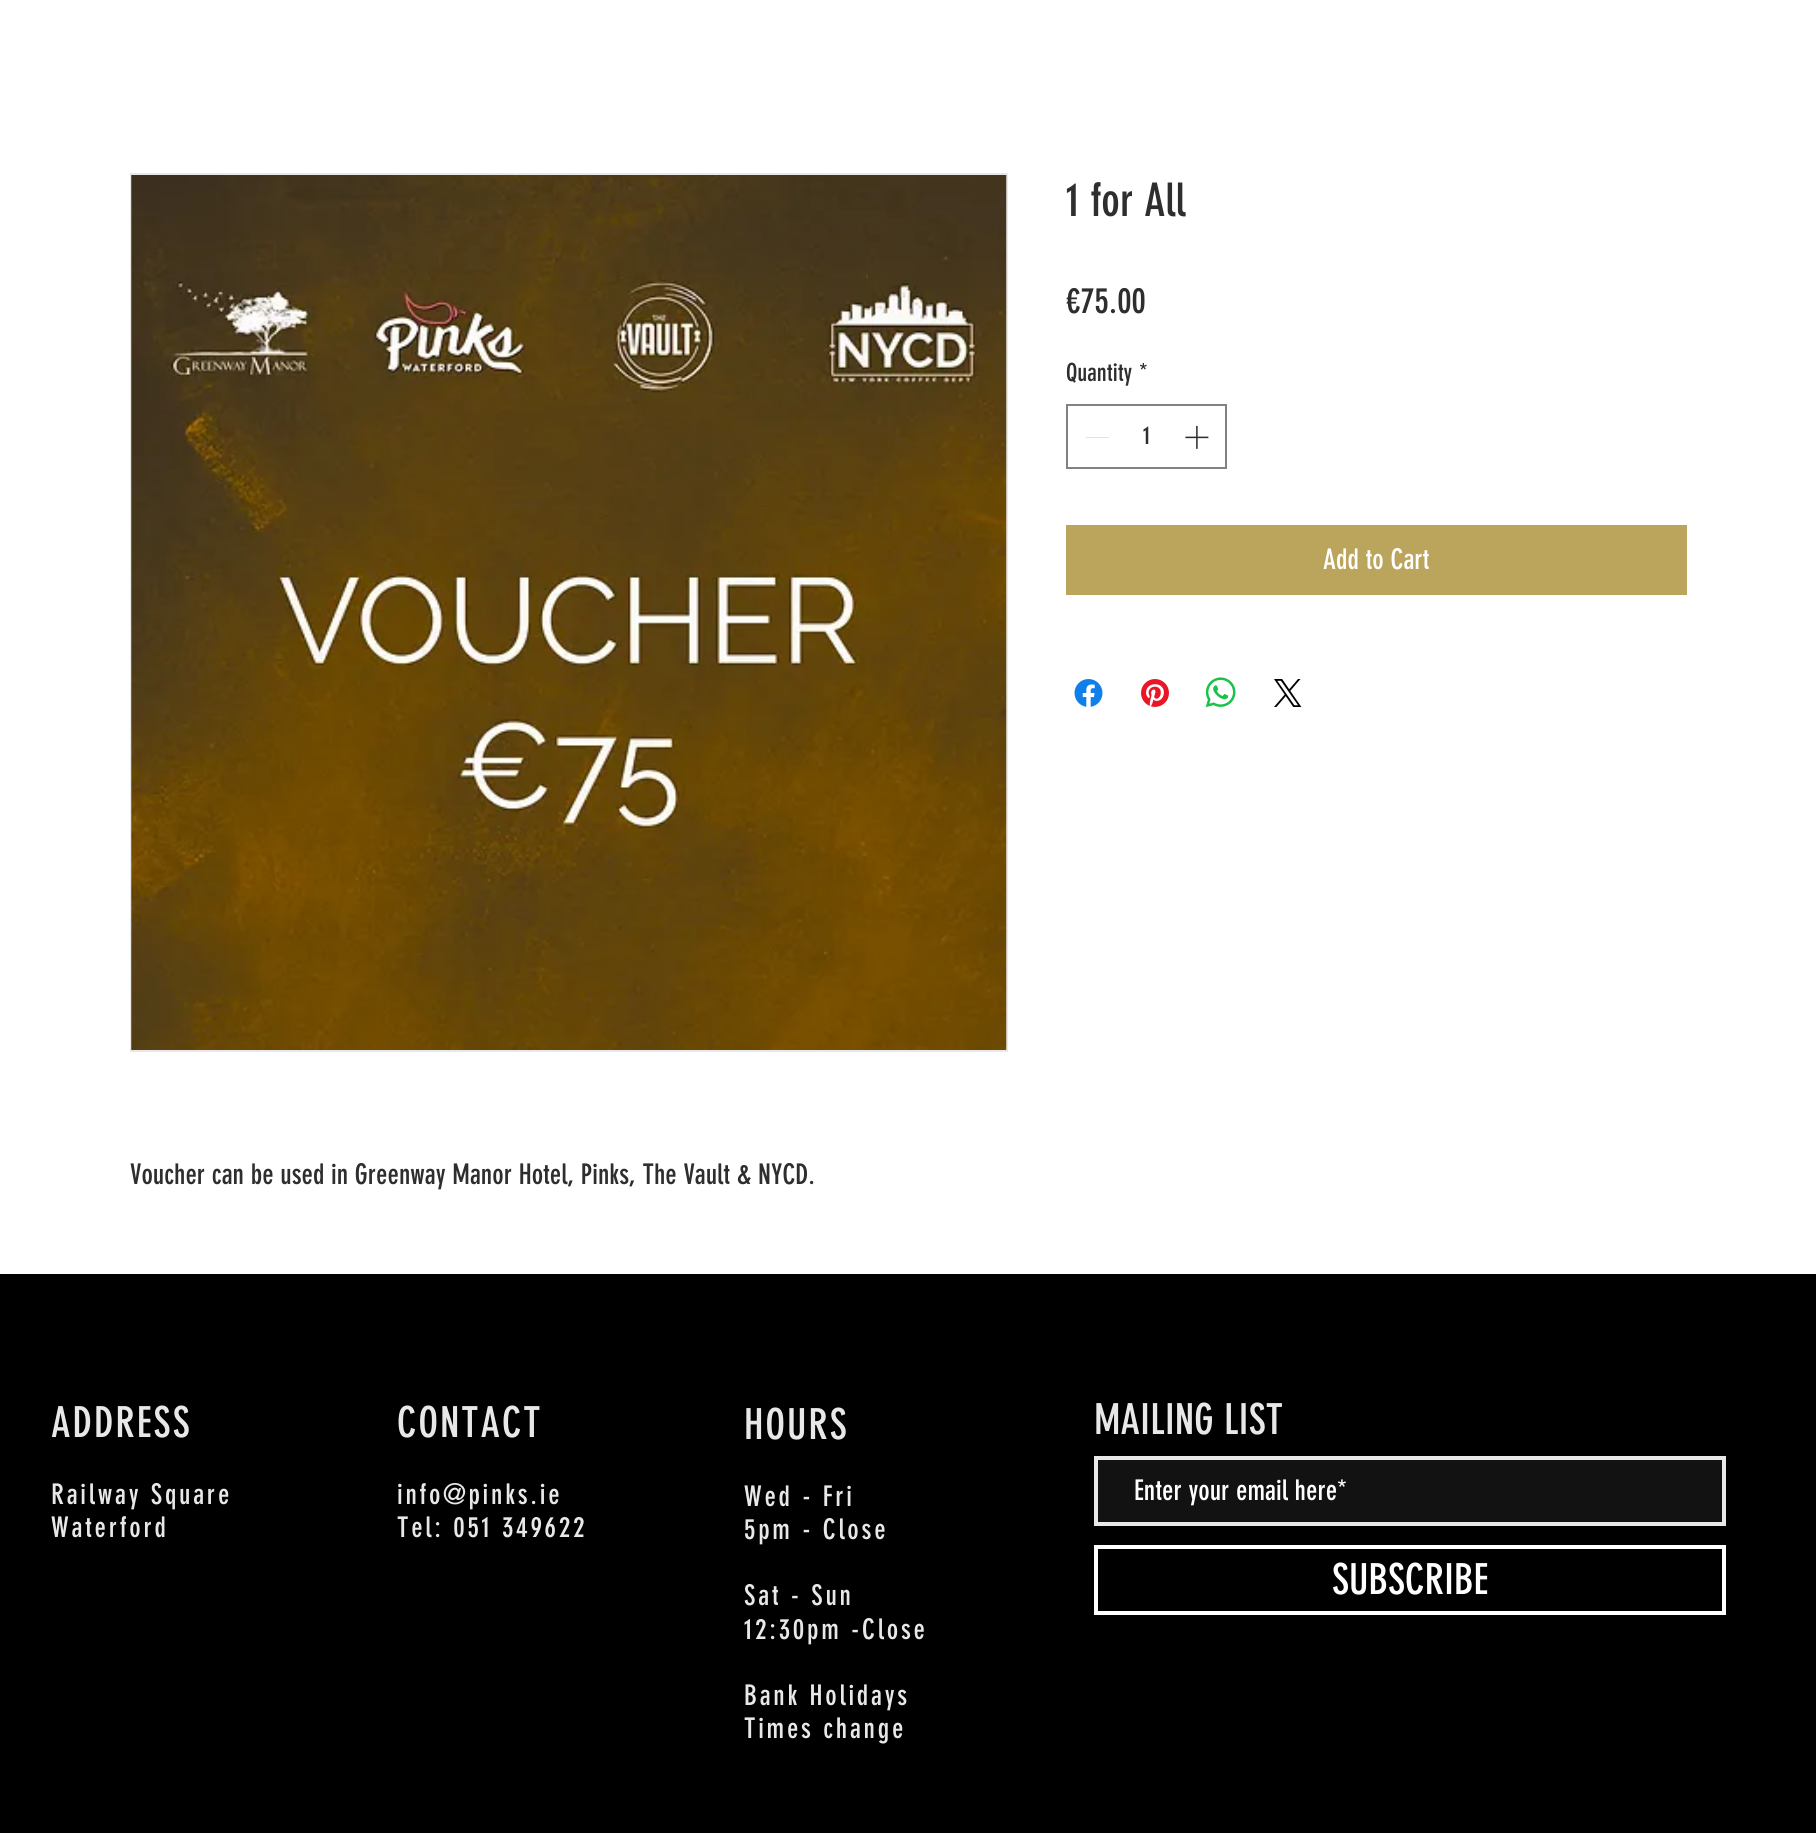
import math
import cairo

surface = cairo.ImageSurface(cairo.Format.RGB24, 1816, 1833)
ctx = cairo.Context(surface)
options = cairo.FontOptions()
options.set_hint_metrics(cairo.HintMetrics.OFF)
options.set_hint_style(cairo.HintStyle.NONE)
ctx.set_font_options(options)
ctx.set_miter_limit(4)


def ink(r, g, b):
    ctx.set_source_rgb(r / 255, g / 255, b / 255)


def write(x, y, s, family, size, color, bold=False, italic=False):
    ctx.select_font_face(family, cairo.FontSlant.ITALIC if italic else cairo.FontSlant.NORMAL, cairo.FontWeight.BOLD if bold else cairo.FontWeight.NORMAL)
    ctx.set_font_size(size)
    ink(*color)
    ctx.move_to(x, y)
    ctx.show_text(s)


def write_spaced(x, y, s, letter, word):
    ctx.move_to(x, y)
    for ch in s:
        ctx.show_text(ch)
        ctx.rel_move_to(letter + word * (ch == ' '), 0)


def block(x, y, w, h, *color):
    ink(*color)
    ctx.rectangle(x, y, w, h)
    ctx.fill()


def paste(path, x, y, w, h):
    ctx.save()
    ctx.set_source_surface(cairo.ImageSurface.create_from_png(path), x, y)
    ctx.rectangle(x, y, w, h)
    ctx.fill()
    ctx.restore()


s1 = dict(family="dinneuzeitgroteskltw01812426", size=45.5, color=(47, 46, 46))
s2 = dict(family="dinneuzeitgroteskltw01812426", size=35, color=(47, 46, 46))
s3 = dict(family="dinneuzeitgroteskltw01812426", size=24.5, color=(47, 46, 46))
s4 = dict(family="dinneuzeitgroteskltw01812426", size=28, color=(255, 255, 255))
s5 = dict(family="dinneuzeitgroteskltw01812426", size=28, color=(47, 46, 46))
s6 = dict(family="dinneuzeitgroteskltw01812426", size=42, color=(232, 232, 232))
s7 = dict(family="dinneuzeitgroteskltw01812426", size=42, color=(255, 255, 255))

ink(255, 255, 255)
ctx.paint()
write(1066, 216, "1 for All", **s1)
write(1066, 313, "€75.00", **s2)
write(1066, 381, "Quantity", **s3)
write(1139, 381, "*", **s3)
ctx.rectangle(1067, 405, 159, 63)
ink(130, 130, 130)
ctx.stroke()
block(1086, 437, 23, 1, 227, 227, 227)
write(1143, 444, "1", **s3)
paste("pic1.png", 1185, 425, 24, 24)
block(1066, 525, 621, 70, 187, 164, 91)
write(1323, 569, "Add to Cart", **s4)
paste("pic2.png", 1074, 679, 29, 28)
paste("pic3.png", 1141, 679, 28, 28)
paste("pic4.png", 1205, 677, 31, 31)
paste("pic5.png", 1274, 679, 28, 28)
ctx.rectangle(131, 174, 876, 877)
ink(232, 232, 232)
ctx.stroke()
paste("pic6.png", 131, 175, 876, 875)
write(130, 1184, "Voucher can be used in Greenway Manor Hotel, Pinks, The Vault & NYCD.", **s5)
block(0, 1274, 1816, 559, 0, 0, 0)
ctx.set_font_size(42)
ink(232, 232, 232)
write_spaced(51, 1437, "ADDRESS", 2, 0)
ctx.set_font_size(28)
write_spaced(51, 1504, "Railway Square", 2.75, 0)
write_spaced(51, 1537, "Waterford", 2.75, 0)
ctx.set_font_size(42)
write_spaced(397, 1437, "CONTACT", 2, 0)
ctx.set_font_size(28)
write_spaced(397, 1504, "info@pinks.ie", 2.75, 0)
write_spaced(397, 1537, "Tel: 051 349622", 2.75, 0)
ctx.set_font_size(42)
write_spaced(744, 1439, "HOURS", 2, 0)
ctx.set_font_size(28)
write_spaced(744, 1506, "Wed - Fri", 2.75, 0)
write_spaced(744, 1539, "5pm - Close", 2.75, 0)
write_spaced(744, 1605, "Sat - Sun", 2.75, 0)
write_spaced(744, 1639, "12:30pm -Close", 2.75, 0)
write_spaced(744, 1705, "Bank Holidays", 2.75, 0)
write_spaced(744, 1738, "Times change", 2.75, 0)
write(1094, 1434, "MAILING LIST", **s6)
ink(18, 18, 18)
ctx.rectangle(1096, 1458, 628, 66)
ctx.fill_preserve()
ink(232, 232, 232)
ctx.set_line_width(4)
ctx.stroke()
write(1134, 1500, "Enter your email here*", **s4)
ctx.rectangle(1096, 1547, 628, 66)
ctx.stroke()
write(1332, 1594, "SUBSCRIBE", **s7)
surface.write_to_png("screenshot.png")
